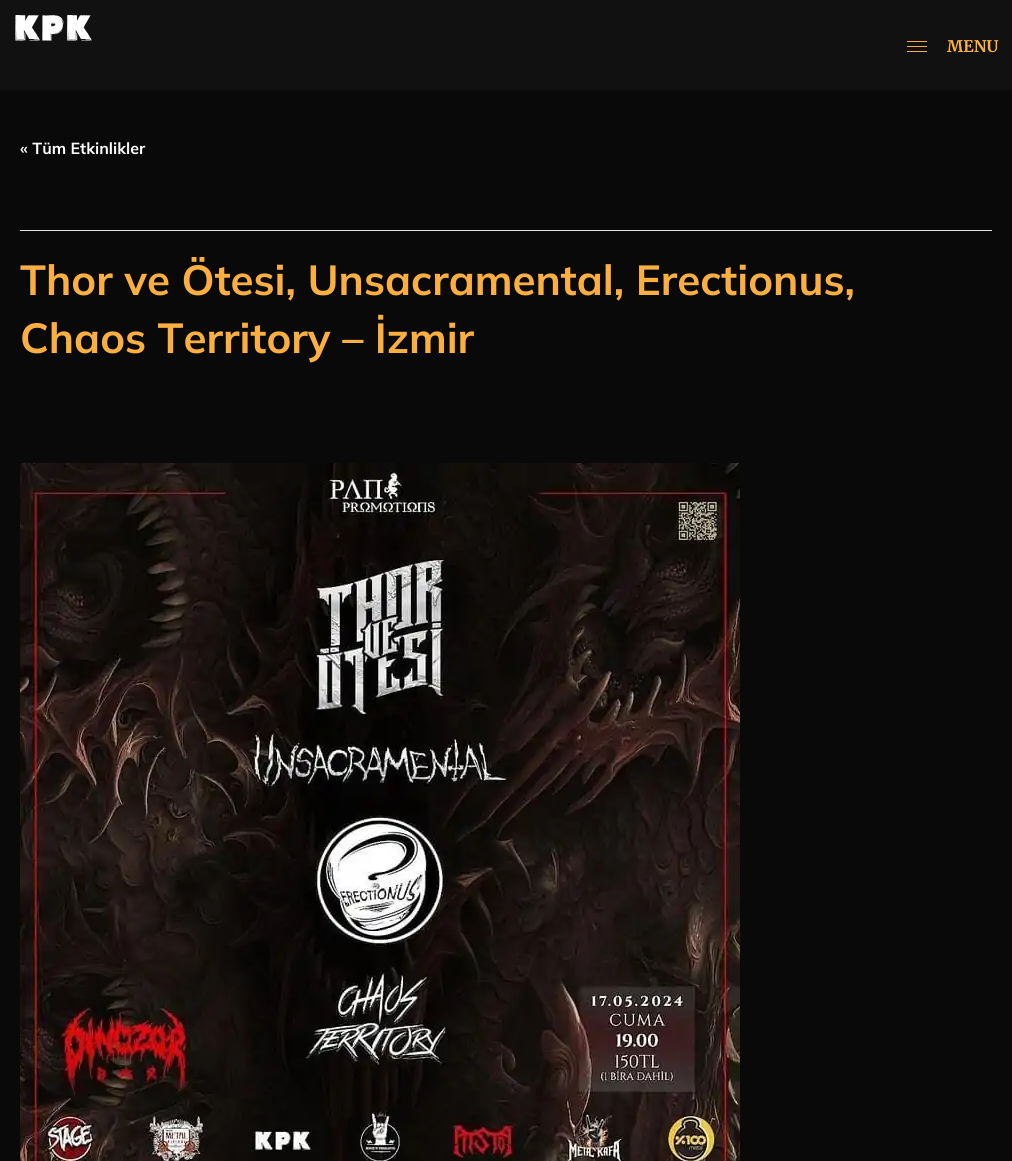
import math
import cairo

surface = cairo.ImageSurface(cairo.Format.RGB24, 1012, 1161)
ctx = cairo.Context(surface)
options = cairo.FontOptions()
options.set_hint_metrics(cairo.HintMetrics.OFF)
options.set_hint_style(cairo.HintStyle.NONE)
ctx.set_font_options(options)
ctx.set_miter_limit(4)


def ink(r, g, b):
    ctx.set_source_rgb(r / 255, g / 255, b / 255)


def write(x, y, s, family, size, color, bold=False, italic=False):
    ctx.select_font_face(family, cairo.FontSlant.ITALIC if italic else cairo.FontSlant.NORMAL, cairo.FontWeight.BOLD if bold else cairo.FontWeight.NORMAL)
    ctx.set_font_size(size)
    ink(*color)
    ctx.move_to(x, y)
    ctx.show_text(s)


def block(x, y, w, h, *color):
    ink(*color)
    ctx.rectangle(x, y, w, h)
    ctx.fill()


def paste(path, x, y, w, h):
    ctx.save()
    ctx.set_source_surface(cairo.ImageSurface.create_from_png(path), x, y)
    ctx.rectangle(x, y, w, h)
    ctx.fill()
    ctx.restore()


s1 = dict(family="Merriweather", size=16, color=(251, 175, 65), bold=True)
s2 = dict(family="Mulish ExtraLight", size=16, color=(255, 255, 255))
s3 = dict(family="Mulish ExtraLight", size=42, color=(251, 175, 65))

ink(9, 9, 9)
ctx.paint()
block(0, 0, 1012, 90, 17, 17, 17)
paste("pic1.png", 15, 15, 77, 26)
block(907, 46, 20, 1, 251, 175, 65)
block(907, 41, 20, 1, 251, 175, 65)
block(907, 51, 20, 1, 251, 175, 65)
write(947, 52, "MENU", **s1)
write(20, 154, "« Tüm Etkinlikler", **s2)
block(20, 230, 972, 1, 228, 228, 228)
write(20, 295, "Thor ve Ötesi, Unsacramental, Erectionus,", **s3)
write(20, 353, "Chaos Territory – İzmir", **s3)
paste("pic2.png", 20, 463, 720, 698)
surface.write_to_png("screenshot.png")
